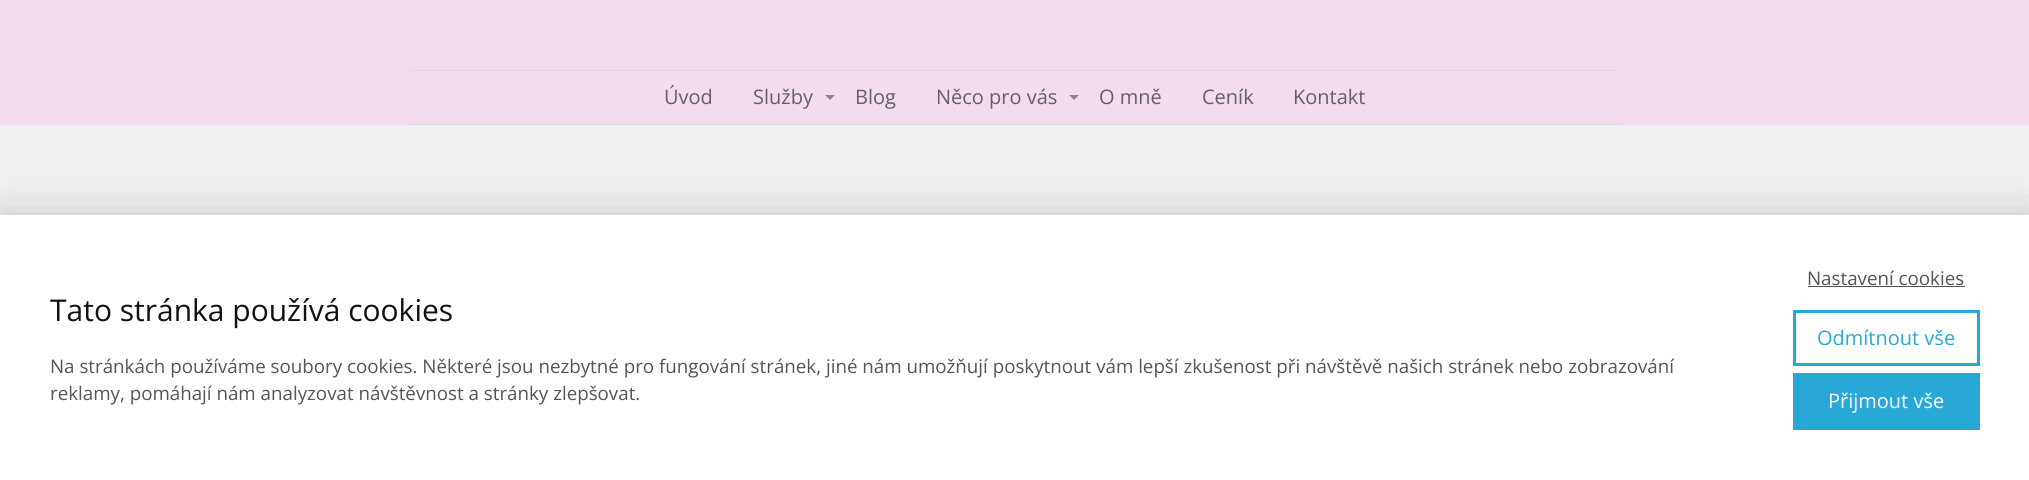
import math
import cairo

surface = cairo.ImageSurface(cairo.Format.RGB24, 2029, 480)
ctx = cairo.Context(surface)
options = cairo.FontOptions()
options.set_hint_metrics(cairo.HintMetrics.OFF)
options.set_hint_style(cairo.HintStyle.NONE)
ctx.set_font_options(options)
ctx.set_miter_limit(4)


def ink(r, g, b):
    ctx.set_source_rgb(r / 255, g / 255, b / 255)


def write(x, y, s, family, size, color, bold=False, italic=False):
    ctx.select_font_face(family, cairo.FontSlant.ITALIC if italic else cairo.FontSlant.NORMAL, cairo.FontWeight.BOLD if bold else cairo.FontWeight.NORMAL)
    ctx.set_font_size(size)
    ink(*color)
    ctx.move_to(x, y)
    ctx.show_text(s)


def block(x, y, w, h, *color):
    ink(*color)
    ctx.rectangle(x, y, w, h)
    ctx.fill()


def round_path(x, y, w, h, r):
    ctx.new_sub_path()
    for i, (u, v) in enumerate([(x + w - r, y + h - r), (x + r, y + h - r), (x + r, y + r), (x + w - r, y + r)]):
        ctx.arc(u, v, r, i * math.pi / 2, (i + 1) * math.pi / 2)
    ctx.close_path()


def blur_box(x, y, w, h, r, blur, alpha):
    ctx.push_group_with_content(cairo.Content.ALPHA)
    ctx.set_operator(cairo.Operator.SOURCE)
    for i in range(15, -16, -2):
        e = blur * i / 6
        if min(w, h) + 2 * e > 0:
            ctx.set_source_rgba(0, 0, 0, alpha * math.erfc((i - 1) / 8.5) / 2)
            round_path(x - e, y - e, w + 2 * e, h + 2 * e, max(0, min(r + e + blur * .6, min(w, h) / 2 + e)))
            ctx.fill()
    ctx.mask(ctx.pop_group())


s1 = dict(family="Open Sans", size=20, color=(98, 98, 99))
s2 = dict(family="Open Sans", size=30, color=(17, 17, 17))
s3 = dict(family="Open Sans", size=18.75, color=(85, 85, 85))
s4 = dict(family="Open Sans", size=20, color=(39, 168, 215))
s5 = dict(family="Open Sans", size=20, color=(255, 255, 255))

ink(241, 241, 241)
ctx.paint()
block(0, 0, 2029, 125, 242, 220, 238)
block(409, 70, 1212, 1, 221, 221, 221)
block(409, 124, 1212, 1, 221, 221, 221)
write(664, 104, "Úvod", **s1)
write(753, 104, "Služby", **s1)
ink(141, 135, 141)
ctx.new_path()
ctx.move_to(825, 95)
ctx.line_to(835, 95)
ctx.line_to(830, 100)
ctx.close_path()
ctx.fill()
write(855, 104, "Blog", **s1)
write(936, 104, "Něco pro vás", **s1)
ink(141, 135, 141)
ctx.new_path()
ctx.move_to(1069, 95)
ctx.line_to(1079, 95)
ctx.line_to(1074, 100)
ctx.close_path()
ctx.fill()
write(1099, 104, "O mně", **s1)
write(1202, 104, "Ceník", **s1)
write(1293, 104, "Kontakt", **s1)
ink(0, 0, 0)
blur_box(0, 215, 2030, 265, 0, 19, 0.2)
block(0, 215, 2029, 265, 255, 255, 255)
write(50, 321, "Tato stránka používá cookies", **s2)
write(50, 373, "Na stránkách používáme soubory cookies. Některé jsou nezbytné pro fungování stránek, jiné nám umožňují poskytnout vám lepší zkušenost při návštěvě našich stránek nebo zobrazování", **s3)
write(50, 400, "reklamy, pomáhají nám analyzovat návštěvnost a stránky zlepšovat.", **s3)
write(1807, 285, "Nastavení cookies", **s3)
block(1808, 286, 157, 1, 85, 85, 85)
ctx.rectangle(1794.5, 311.5, 184, 53)
ink(39, 168, 215)
ctx.set_line_width(3)
ctx.stroke()
write(1817, 345, "Odmítnout vše", **s4)
block(1793, 373, 187, 57, 39, 168, 215)
write(1828, 408, "Přijmout vše", **s5)
surface.write_to_png("screenshot.png")
